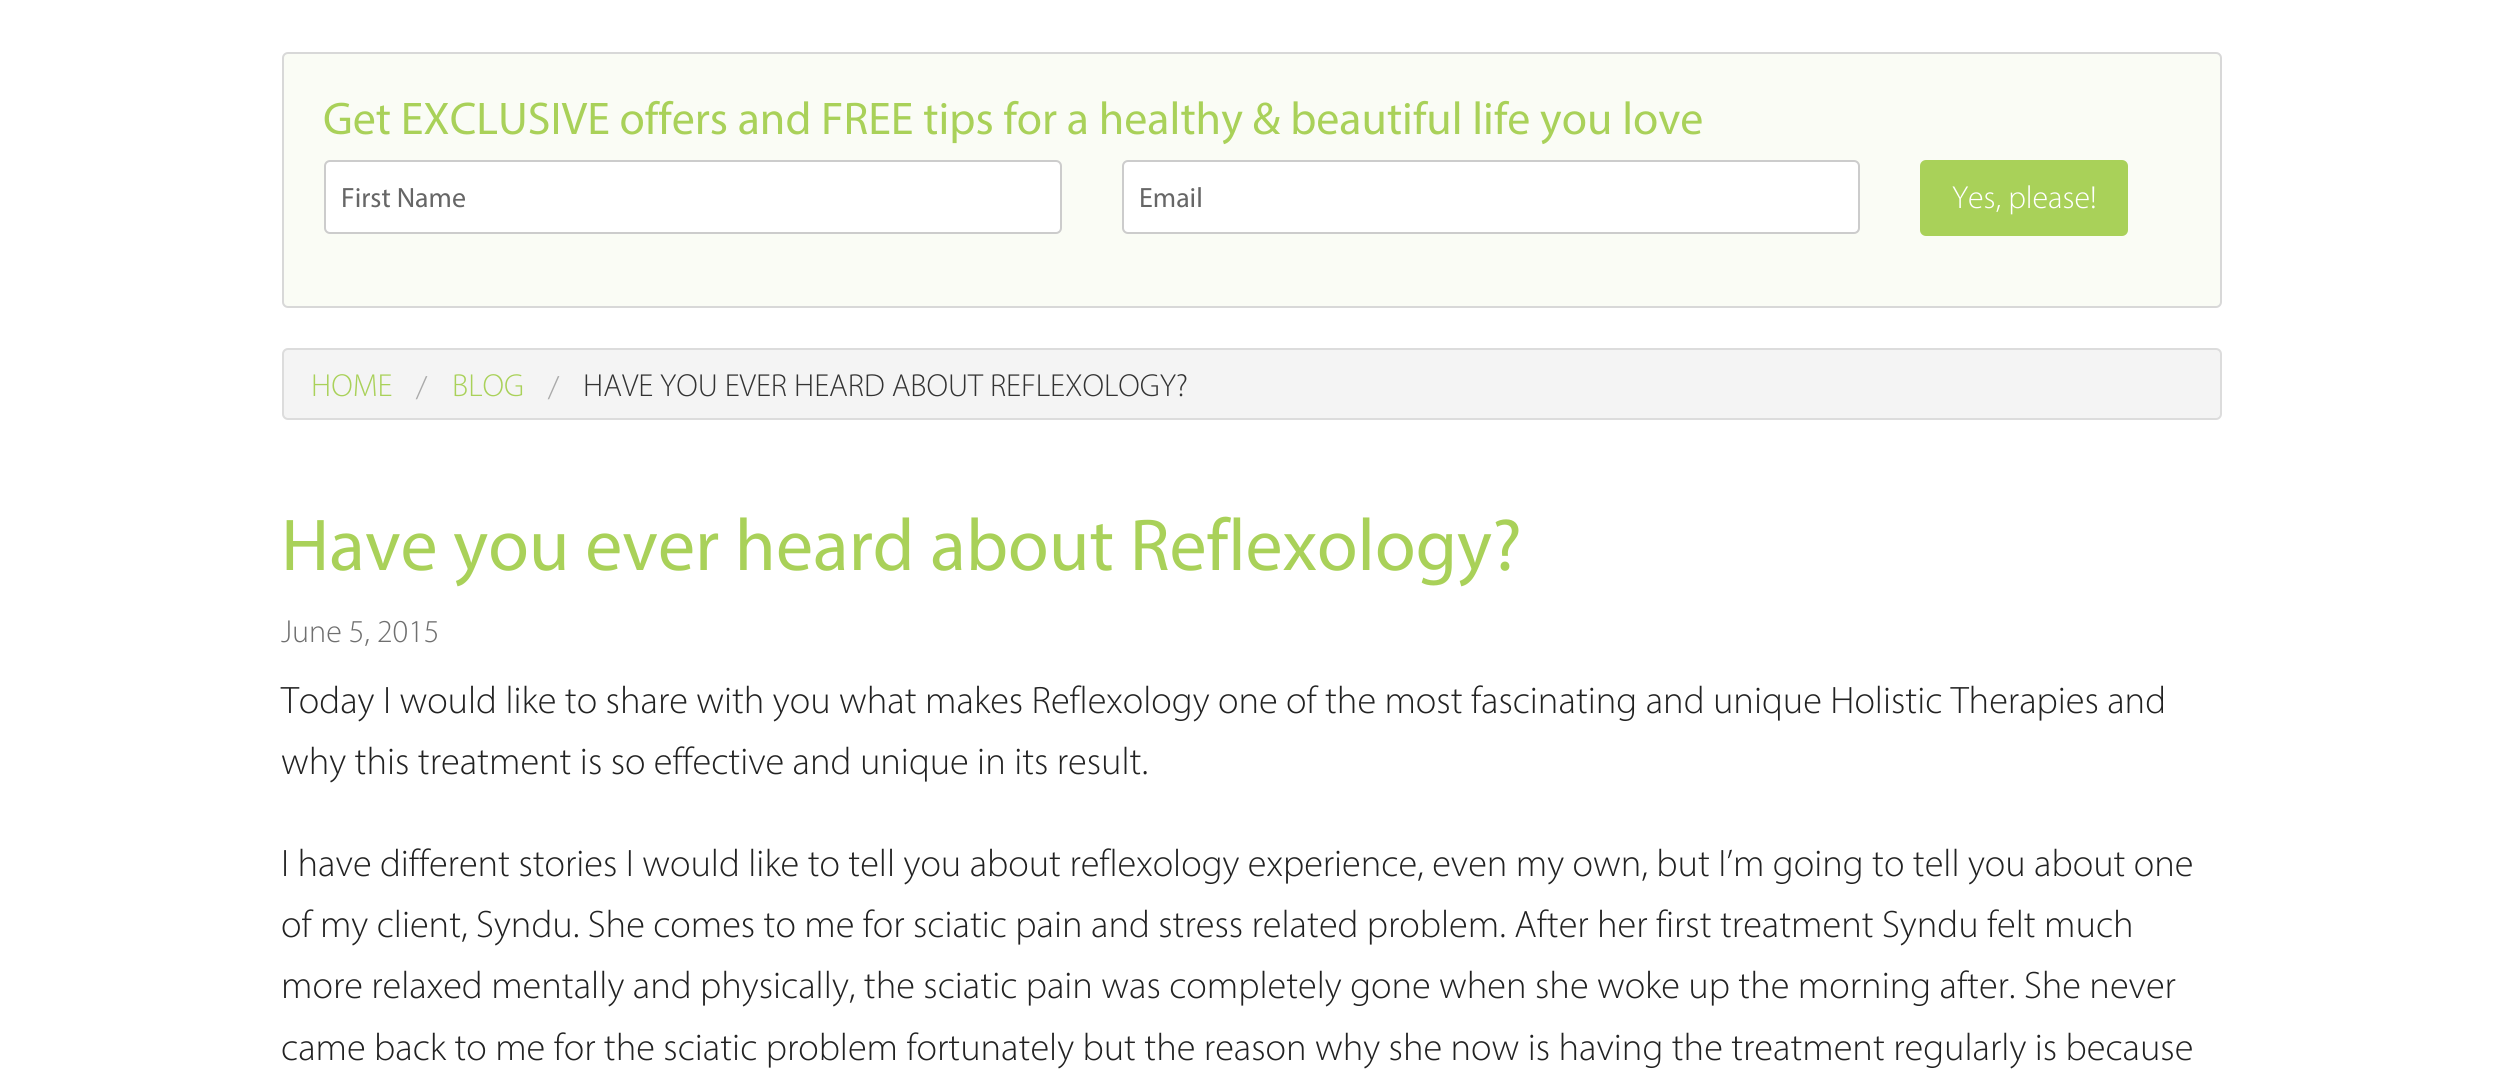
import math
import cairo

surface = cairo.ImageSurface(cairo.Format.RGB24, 2501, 1080)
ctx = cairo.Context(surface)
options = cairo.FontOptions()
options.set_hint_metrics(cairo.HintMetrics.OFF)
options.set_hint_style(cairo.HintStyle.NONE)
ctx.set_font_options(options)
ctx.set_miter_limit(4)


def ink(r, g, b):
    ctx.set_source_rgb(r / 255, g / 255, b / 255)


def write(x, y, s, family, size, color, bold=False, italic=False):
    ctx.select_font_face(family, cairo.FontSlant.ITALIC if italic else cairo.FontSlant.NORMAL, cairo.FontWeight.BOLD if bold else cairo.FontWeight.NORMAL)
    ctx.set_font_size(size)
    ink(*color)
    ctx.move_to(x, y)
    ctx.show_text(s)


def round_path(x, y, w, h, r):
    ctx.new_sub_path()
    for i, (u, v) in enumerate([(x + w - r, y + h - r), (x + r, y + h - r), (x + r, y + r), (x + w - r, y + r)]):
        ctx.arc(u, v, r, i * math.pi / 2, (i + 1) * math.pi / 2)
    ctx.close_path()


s1 = dict(family="Myriad", size=46, color=(169, 209, 89))
s2 = dict(family="Myriad", size=28, color=(102, 102, 102))
s3 = dict(family="Myriad Light", size=32, color=(255, 255, 255))
s4 = dict(family="Myriad Light", size=32, color=(169, 209, 89))
s5 = dict(family="Myriad Light", size=32, color=(170, 170, 170))
s6 = dict(family="Myriad Light", size=32, color=(51, 51, 51))
s7 = dict(family="Myriad", size=74, color=(169, 209, 89))
s8 = dict(family="Myriad Light", size=32, color=(111, 111, 111))
s9 = dict(family="Myriad Light", size=38.4, color=(34, 34, 34))

ink(255, 255, 255)
ctx.paint()
ink(250, 252, 245)
round_path(283, 53, 1938, 254, 5)
ctx.fill_preserve()
ink(216, 216, 216)
ctx.stroke()
write(323, 134, "Get EXCLUSIVE offers and FREE tips for a healthy & beautiful life you love", **s1)
ink(255, 255, 255)
round_path(325, 161, 736, 72, 5)
ctx.fill_preserve()
ink(204, 204, 204)
ctx.stroke()
write(341, 207, "First Name", **s2)
ink(255, 255, 255)
round_path(1123, 161, 736, 72, 5)
ctx.fill_preserve()
ink(204, 204, 204)
ctx.stroke()
write(1139, 207, "Email", **s2)
ink(169, 209, 89)
round_path(1920, 160, 208, 76, 6)
ctx.fill()
write(1952, 208, "Yes, please!", **s3)
ink(244, 244, 244)
round_path(283, 349, 1938, 70, 5)
ctx.fill_preserve()
ink(220, 220, 220)
ctx.stroke()
write(311, 396, "HOME", **s4)
write(416, 398, "/", **s5)
write(452, 396, "BLOG", **s4)
write(548, 398, "/", **s5)
write(583, 396, "HAVE YOU EVER HEARD ABOUT REFLEXOLOGY?", **s6)
write(281, 570, "Have you ever heard about Reflexology?", **s7)
write(281, 642, "June 5, 2015", **s8)
write(281, 713, "Today I would like to share with you what makes Reflexology one of the most fascinating and unique Holistic Therapies and", **s9)
write(281, 774, "why this treatment is so effective and unique in its result.", **s9)
write(281, 876, "I have different stories I would like to tell you about reflexology experience, even my own, but I’m going to tell you about one", **s9)
write(281, 937, "of my client, Syndu. She comes to me for sciatic pain and stress related problem. After her first treatment Syndu felt much", **s9)
write(281, 998, "more relaxed mentally and physically, the sciatic pain was completely gone when she woke up the morning after. She never", **s9)
write(281, 1060, "came back to me for the sciatic problem fortunately but the reason why she now is having the treatment regularly is because", **s9)
surface.write_to_png("screenshot.png")
